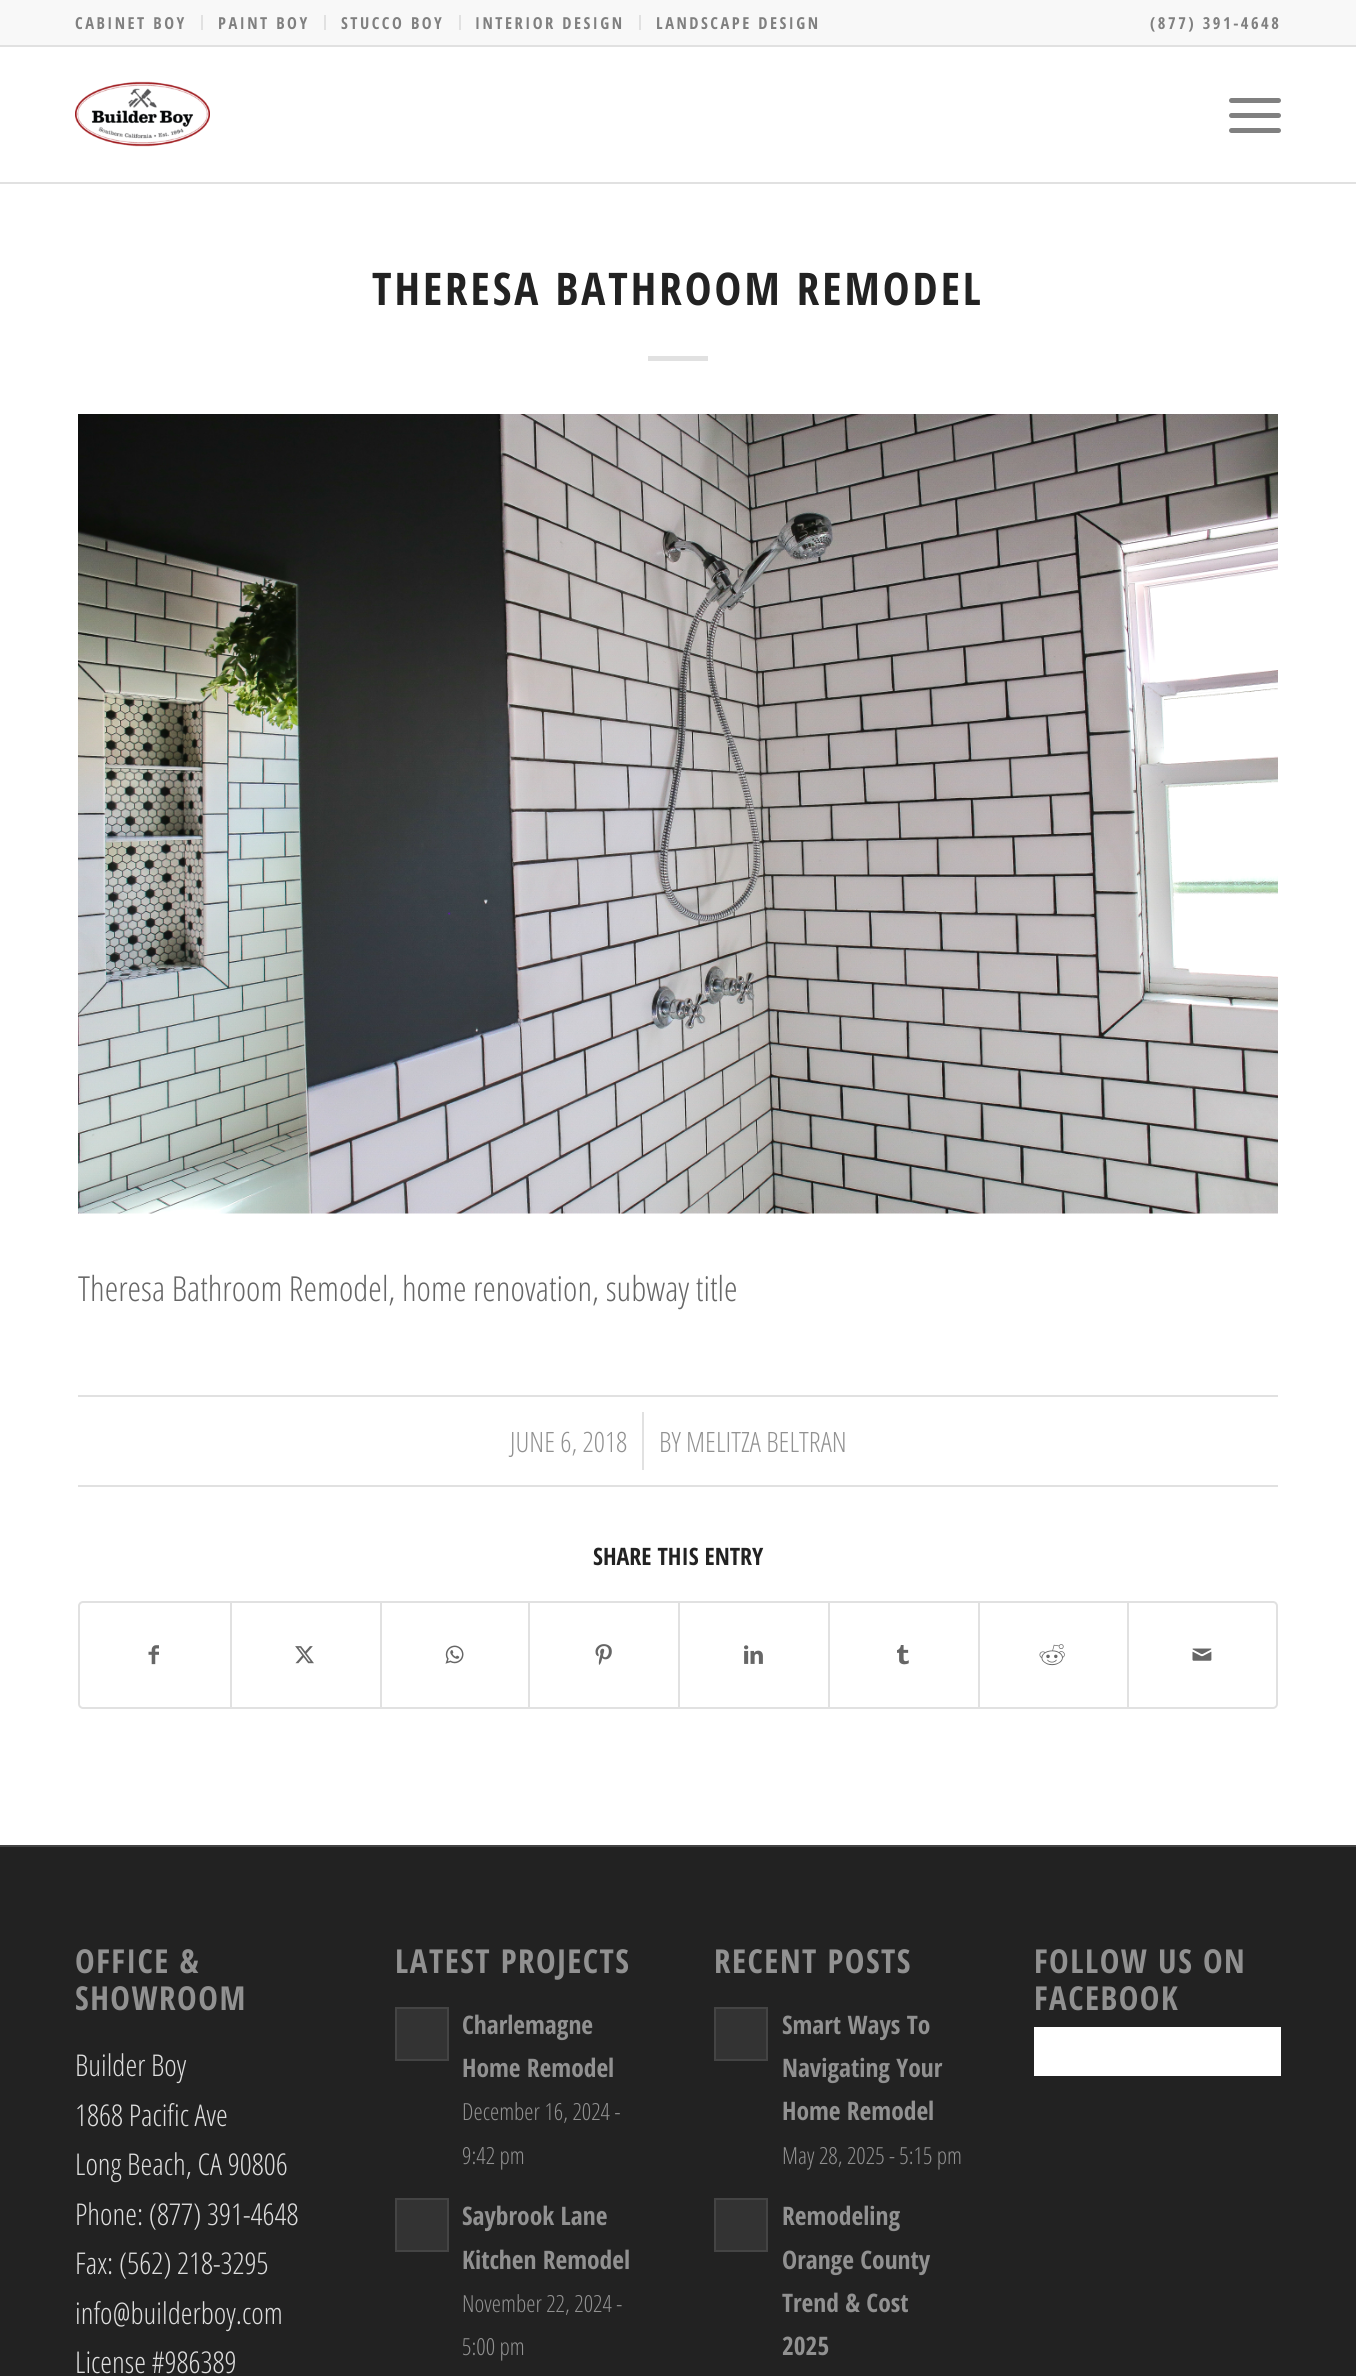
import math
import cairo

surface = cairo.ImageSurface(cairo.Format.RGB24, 1356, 2376)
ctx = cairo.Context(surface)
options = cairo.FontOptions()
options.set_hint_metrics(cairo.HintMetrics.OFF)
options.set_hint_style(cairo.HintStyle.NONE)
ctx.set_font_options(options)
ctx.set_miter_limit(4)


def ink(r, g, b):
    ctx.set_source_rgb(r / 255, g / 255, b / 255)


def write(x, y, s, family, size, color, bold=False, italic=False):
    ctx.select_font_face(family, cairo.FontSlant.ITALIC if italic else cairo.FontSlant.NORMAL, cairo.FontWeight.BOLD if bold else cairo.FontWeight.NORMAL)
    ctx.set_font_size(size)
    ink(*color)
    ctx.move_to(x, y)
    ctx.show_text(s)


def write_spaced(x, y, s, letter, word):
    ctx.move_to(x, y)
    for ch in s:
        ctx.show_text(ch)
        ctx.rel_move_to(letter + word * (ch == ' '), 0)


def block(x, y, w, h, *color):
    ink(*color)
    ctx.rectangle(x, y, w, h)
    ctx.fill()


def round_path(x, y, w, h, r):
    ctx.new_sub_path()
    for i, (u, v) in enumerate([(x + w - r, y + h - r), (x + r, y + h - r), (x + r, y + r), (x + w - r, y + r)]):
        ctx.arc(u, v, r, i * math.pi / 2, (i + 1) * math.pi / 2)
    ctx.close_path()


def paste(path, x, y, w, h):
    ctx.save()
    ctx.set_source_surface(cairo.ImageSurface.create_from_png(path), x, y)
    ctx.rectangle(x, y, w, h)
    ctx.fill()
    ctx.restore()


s1 = dict(family="Open Sans Condensed Light", size=34.5, color=(102, 102, 102))
s2 = dict(family="Open Sans Condensed Light", size=28, color=(145, 145, 145))
s3 = dict(family="Open Sans Condensed", size=24, color=(34, 34, 34), bold=True)
s4 = dict(family="Open Sans Condensed Light", size=30, color=(221, 221, 221))
s5 = dict(family="Open Sans Condensed", size=25.5, color=(145, 145, 145), bold=True)
s6 = dict(family="Open Sans Condensed Light", size=23.5, color=(145, 145, 145))

ink(255, 255, 255)
ctx.paint()
block(0, 0, 1356, 45, 248, 248, 248)
block(0, 45, 1356, 2, 225, 225, 225)
block(201, 15, 2, 15, 225, 225, 225)
ctx.select_font_face("Open Sans Condensed", cairo.FontSlant.NORMAL, cairo.FontWeight.BOLD)
ctx.set_font_size(16.5)
ink(128, 128, 128)
write_spaced(75, 29, "CABINET BOY", 2.5, 0)
block(324, 15, 2, 15, 225, 225, 225)
ink(128, 128, 128)
write_spaced(218, 29, "PAINT BOY", 2.5, 0)
block(459, 15, 2, 15, 225, 225, 225)
ink(128, 128, 128)
write_spaced(341, 29, "STUCCO BOY", 2.5, 0)
block(639, 15, 2, 15, 225, 225, 225)
ink(128, 128, 128)
write_spaced(475, 29, "INTERIOR DESIGN", 2.5, 0)
write_spaced(656, 29, "LANDSCAPE DESIGN", 2.5, 0)
write_spaced(1150, 29, "(877) 391-4648", 2.5, 0)
block(0, 182, 1356, 2, 225, 225, 225)
paste("pic1.png", 75, 81, 135, 66)
ink(128, 128, 128)
round_path(1229, 113, 52, 5, 2.5)
ctx.fill()
round_path(1229, 98, 52, 5, 2.5)
ctx.fill()
round_path(1229, 128, 52, 5, 2.5)
ctx.fill()
ctx.set_font_size(45)
ink(34, 34, 34)
write_spaced(372, 305, "THERESA BATHROOM REMODEL", 3, 0)
block(648, 356, 60, 5, 225, 225, 225)
paste("pic2.png", 78, 414, 1200, 800)
write(78, 1301, "Theresa Bathroom Remodel, home renovation, subway title", **s1)
block(78, 1395, 1200, 2, 225, 225, 225)
block(78, 1485, 1200, 2, 225, 225, 225)
write(510, 1452, "JUNE 6, 2018", **s2)
block(642, 1412, 2, 58, 225, 225, 225)
write(659, 1452, "BY MELITZA BELTRAN", **s2)
write(593, 1565, "SHARE THIS ENTRY", **s3)
round_path(79, 1602, 1198, 106, 4)
ink(225, 225, 225)
ctx.stroke()
paste("pic3.png", 148, 1645, 11, 20)
block(230, 1602, 2, 105, 225, 225, 225)
paste("pic4.png", 295, 1646, 19, 18)
block(380, 1602, 2, 105, 225, 225, 225)
paste("pic5.png", 445, 1645, 19, 19)
block(528, 1602, 2, 105, 225, 225, 225)
paste("pic6.png", 595, 1644, 17, 21)
block(678, 1602, 2, 105, 225, 225, 225)
paste("pic7.png", 744, 1645, 19, 19)
block(828, 1602, 2, 105, 225, 225, 225)
paste("pic8.png", 897, 1645, 12, 20)
block(978, 1602, 2, 105, 225, 225, 225)
paste("pic9.png", 1039, 1644, 26, 22)
block(1127, 1602, 2, 105, 225, 225, 225)
paste("pic10.png", 1192, 1648, 20, 13)
block(0, 1847, 1356, 529, 34, 34, 34)
block(0, 1845, 1356, 2, 68, 68, 68)
ctx.set_font_size(33)
ink(145, 145, 145)
write_spaced(75, 1973, "OFFICE &", 1.5, 0)
write_spaced(75, 2010, "SHOWROOM", 1.5, 0)
write(75, 2076, "Builder Boy", **s4)
write(75, 2126, "1868 Pacific Ave", **s4)
write(75, 2175, "Long Beach, CA 90806", **s4)
write(75, 2225, "Phone: (877) 391-4648", **s4)
write(75, 2274, "Fax: (562) 218-3295", **s4)
write(75, 2324, "info@builderboy.com", **s4)
write(75, 2373, "License #986389", **s4)
ctx.select_font_face("Open Sans Condensed", cairo.FontSlant.NORMAL, cairo.FontWeight.BOLD)
ctx.set_font_size(33)
ink(145, 145, 145)
write_spaced(395, 1973, "LATEST PROJECTS", 1.5, 0)
ink(51, 51, 51)
ctx.rectangle(396, 2008, 52, 52)
ctx.fill_preserve()
ink(68, 68, 68)
ctx.stroke()
write(462, 2034, "Charlemagne", **s5)
write(462, 2077, "Home Remodel", **s5)
write(462, 2120, "December 16, 2024 -", **s6)
write(462, 2164, "9:42 pm", **s6)
ink(51, 51, 51)
ctx.rectangle(396, 2199, 52, 52)
ctx.fill_preserve()
ink(68, 68, 68)
ctx.stroke()
write(462, 2225, "Saybrook Lane", **s5)
write(462, 2269, "Kitchen Remodel", **s5)
write(462, 2312, "November 22, 2024 -", **s6)
write(462, 2355, "5:00 pm", **s6)
ctx.select_font_face("Open Sans Condensed", cairo.FontSlant.NORMAL, cairo.FontWeight.BOLD)
ctx.set_font_size(33)
write_spaced(714, 1973, "RECENT POSTS", 1.5, 0)
ink(51, 51, 51)
ctx.rectangle(715, 2008, 52, 52)
ctx.fill_preserve()
ink(68, 68, 68)
ctx.stroke()
write(782, 2034, "Smart Ways To", **s5)
write(782, 2077, "Navigating Your", **s5)
write(782, 2120, "Home Remodel", **s5)
write(782, 2164, "May 28, 2025 - 5:15 pm", **s6)
ink(51, 51, 51)
ctx.rectangle(715, 2199, 52, 52)
ctx.fill_preserve()
ink(68, 68, 68)
ctx.stroke()
write(782, 2225, "Remodeling", **s5)
write(782, 2269, "Orange County", **s5)
write(782, 2312, "Trend & Cost", **s5)
write(782, 2355, "2025", **s5)
ctx.set_font_size(33)
write_spaced(1034, 1973, "FOLLOW US ON", 1.5, 0)
write_spaced(1034, 2010, "FACEBOOK", 1.5, 0)
block(1034, 2027, 247, 49, 255, 255, 255)
surface.write_to_png("screenshot.png")
